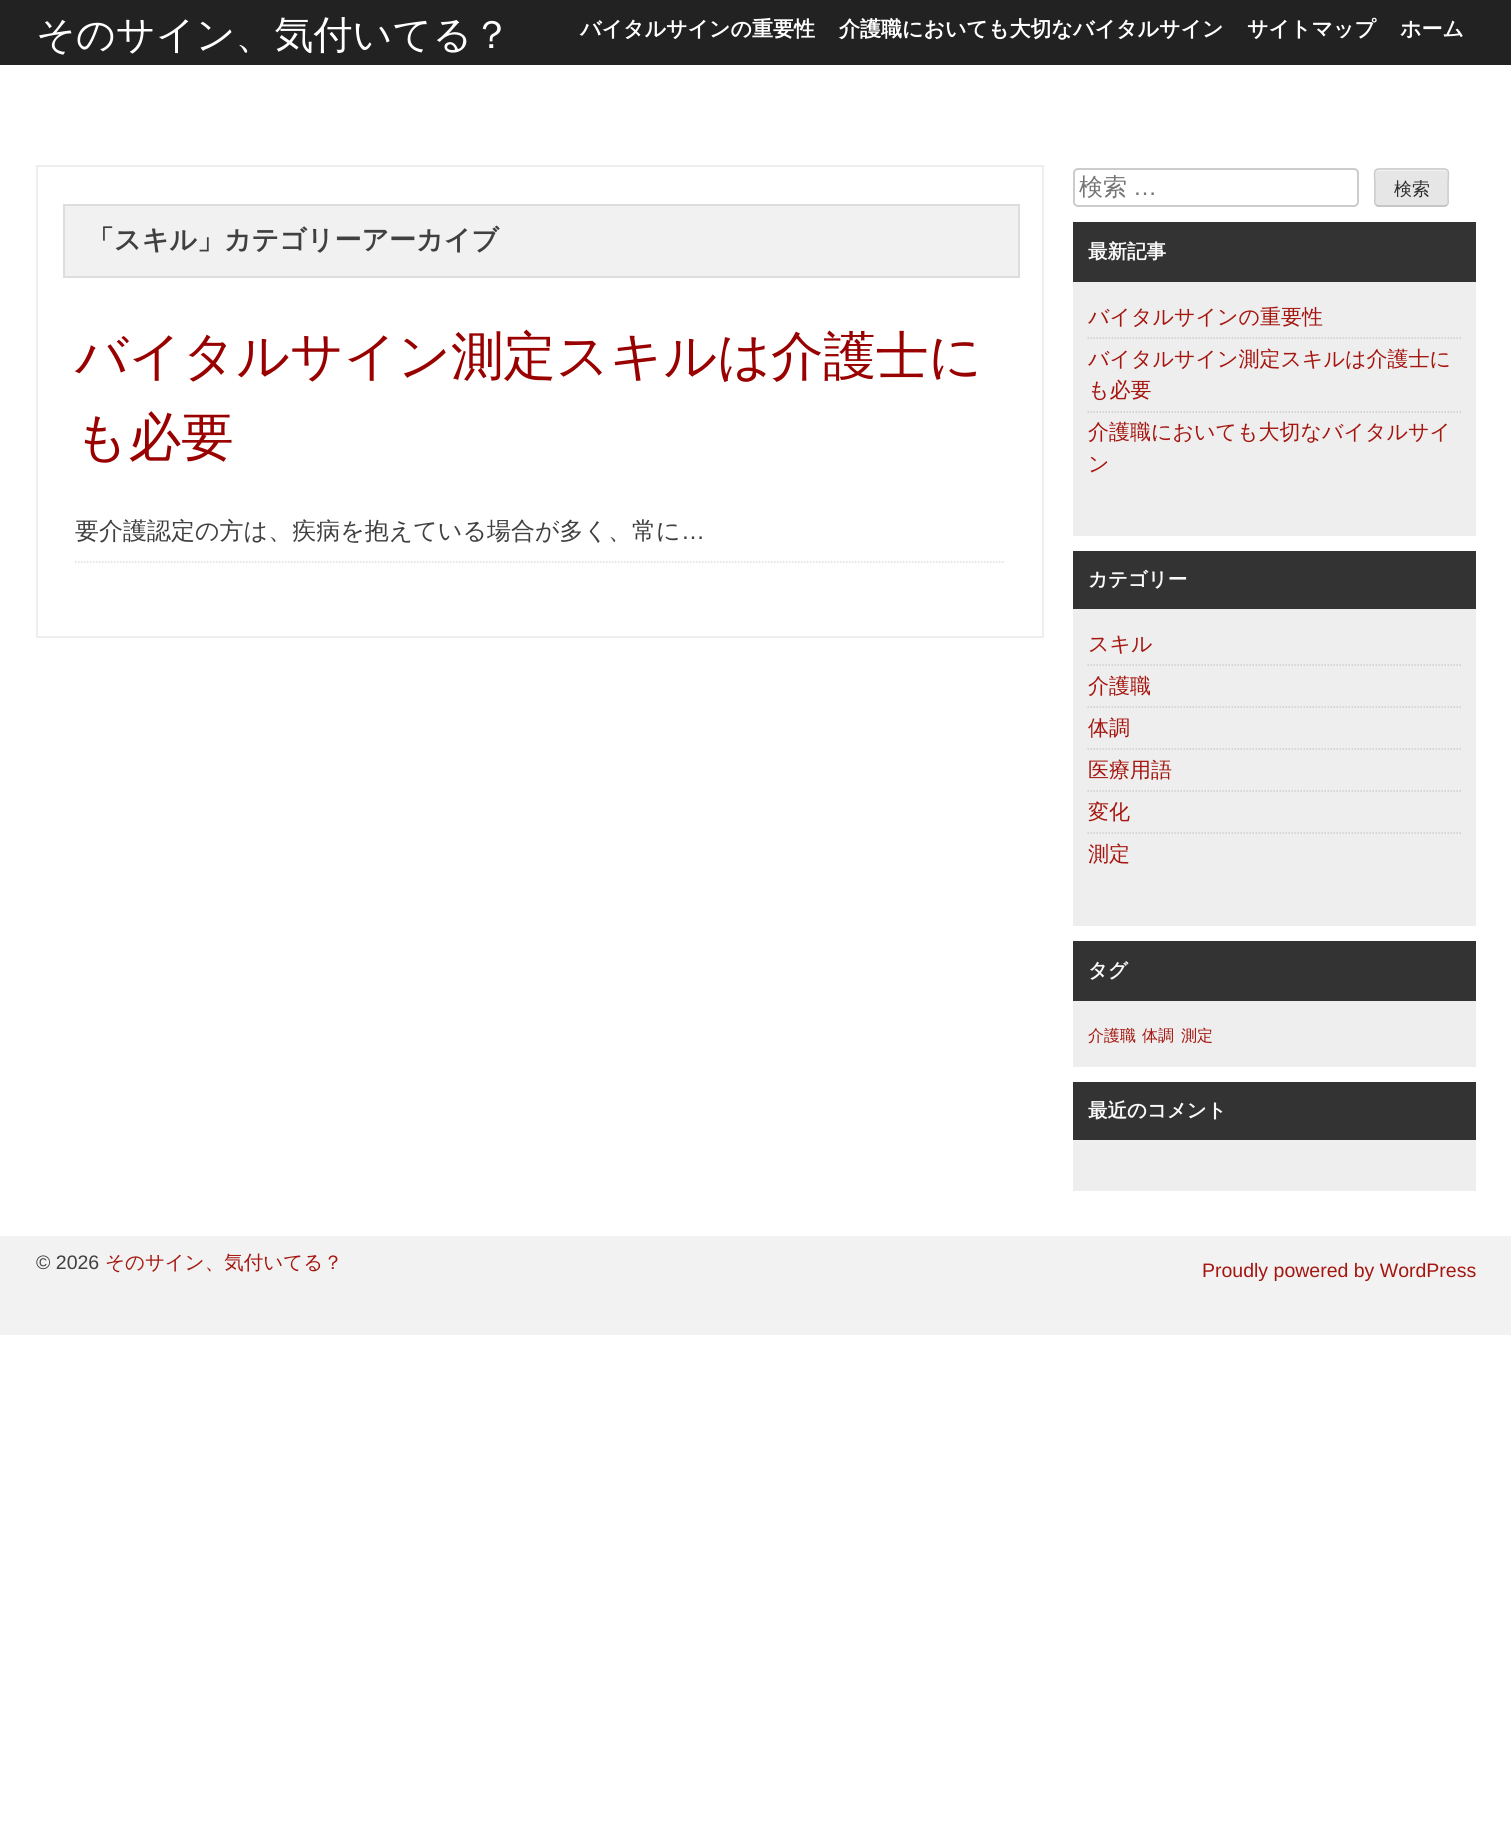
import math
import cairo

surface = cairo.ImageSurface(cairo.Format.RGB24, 1511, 1834)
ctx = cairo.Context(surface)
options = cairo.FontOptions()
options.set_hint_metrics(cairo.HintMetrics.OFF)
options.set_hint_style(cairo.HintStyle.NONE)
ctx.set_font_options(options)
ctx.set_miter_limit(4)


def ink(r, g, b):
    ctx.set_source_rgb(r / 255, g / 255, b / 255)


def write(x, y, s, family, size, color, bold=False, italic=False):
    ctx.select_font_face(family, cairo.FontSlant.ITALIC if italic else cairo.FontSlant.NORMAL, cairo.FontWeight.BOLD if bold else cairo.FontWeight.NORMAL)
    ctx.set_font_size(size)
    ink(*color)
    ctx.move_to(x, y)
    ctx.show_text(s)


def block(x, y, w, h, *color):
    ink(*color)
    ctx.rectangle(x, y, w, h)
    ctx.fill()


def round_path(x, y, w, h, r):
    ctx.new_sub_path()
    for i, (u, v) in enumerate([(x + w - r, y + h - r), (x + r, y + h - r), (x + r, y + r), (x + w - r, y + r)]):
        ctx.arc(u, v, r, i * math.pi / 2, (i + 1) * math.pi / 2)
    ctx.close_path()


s1 = dict(family="WenQuanYi Zen Hei Medium", size=39, color=(255, 255, 255))
s2 = dict(family="WenQuanYi Zen Hei", size=21, color=(255, 255, 255), bold=True)
s3 = dict(family="WenQuanYi Zen Hei", size=27, color=(64, 64, 64), bold=True)
s4 = dict(family="WenQuanYi Zen Hei Medium", size=52.5, color=(153, 0, 0))
s5 = dict(family="WenQuanYi Zen Hei Medium", size=24, color=(64, 64, 64))
s6 = dict(family="Liberation Sans", size=24, color=(64, 64, 64))
s7 = dict(family="WenQuanYi Zen Hei Medium", size=24, color=(117, 117, 117))
s8 = dict(family="Liberation Sans", size=24, color=(117, 117, 117))
s9 = dict(family="WenQuanYi Zen Hei Medium", size=18, color=(46, 46, 46))
s10 = dict(family="WenQuanYi Zen Hei", size=19.5, color=(249, 249, 249), bold=True)
s11 = dict(family="WenQuanYi Zen Hei Medium", size=21, color=(164, 22, 15))
s12 = dict(family="WenQuanYi Zen Hei Medium", size=16, color=(164, 22, 15))
s13 = dict(family="Liberation Sans", size=19.5, color=(64, 64, 64))
s14 = dict(family="WenQuanYi Zen Hei Medium", size=19.5, color=(164, 22, 15))
s15 = dict(family="Liberation Sans", size=19.5, color=(164, 22, 15))

ink(255, 255, 255)
ctx.paint()
block(0, 0, 1511, 65, 34, 34, 34)
write(36, 48, "そのサイン、気付いてる？", **s1)
write(580, 36, "バイタルサインの重要性", **s2)
write(839, 36, "介護職においても大切なバイタルサイン", **s2)
write(1247, 36, "サイトマップ", **s2)
write(1400, 36, "ホーム", **s2)
ctx.rectangle(37, 166, 1006, 471)
ink(238, 238, 238)
ctx.stroke()
ink(241, 241, 241)
ctx.rectangle(64, 205, 955, 72)
ctx.fill_preserve()
ink(221, 221, 221)
ctx.stroke()
write(87, 249, "「スキル」カテゴリーアーカイブ", **s3)
ctx.new_path()
ctx.move_to(75, 562)
ctx.line_to(1005, 562)
ink(221, 221, 221)
ctx.set_line_width(1.5)
ctx.set_dash([1.5, 1.5])
ctx.stroke()
write(75, 374, "バイタルサイン測定スキルは介護士に", **s4)
write(75, 455, "も必要", **s4)
write(75, 539, "要介護認定の方は、疾病を抱えている場合が多く、常に", **s5)
write(681, 539, "…", **s6)
round_path(1074, 169, 284, 37, 4)
ink(204, 204, 204)
ctx.set_line_width(2)
ctx.set_dash([])
ctx.stroke()
write(1079, 195, "検索", **s7)
write(1133, 195, "…", **s8)
ink(230, 230, 230)
round_path(1374, 168, 75, 39, 5)
ctx.fill()
ink(243, 243, 243)
ctx.new_path()
ctx.move_to(1378, 171)
ctx.line_to(1444, 171)
ctx.curve_to(1446, 171, 1448, 172, 1448, 174)
ctx.curve_to(1448, 167, 1438, 170, 1434, 170)
ctx.line_to(1390, 170)
ctx.curve_to(1386, 170, 1376, 167, 1376, 174)
ctx.curve_to(1376, 172, 1377, 171, 1378, 171)
ctx.close_path()
ctx.fill()
ctx.new_path()
ctx.move_to(1447, 205)
ctx.line_to(1445, 206)
ctx.line_to(1378, 206)
ctx.line_to(1376, 205)
ink(187, 187, 187)
ctx.set_line_width(1.5)
ctx.stroke()
ctx.new_path()
ctx.move_to(1376, 205)
ctx.curve_to(1374, 203.5, 1375, 199.5, 1375, 197.5)
ctx.line_to(1375, 187.5)
ctx.curve_to(1375, 167.5, 1370.5, 169, 1389.5, 169)
ctx.line_to(1433.5, 169)
ctx.curve_to(1452.5, 169, 1448, 167.5, 1448, 187.5)
ctx.line_to(1448, 197.5)
ctx.curve_to(1448, 199.5, 1449, 203.5, 1447, 205)
ink(204, 204, 204)
ctx.stroke()
write(1394, 195, "検索", **s9)
block(1073, 282, 403, 254, 238, 238, 238)
block(1073, 222, 403, 60, 51, 51, 51)
write(1088, 258, "最新記事", **s10)
ctx.new_path()
ctx.move_to(1087.5, 338)
ctx.line_to(1461, 338)
ink(204, 204, 204)
ctx.set_dash([1.5, 1.5])
ctx.stroke()
write(1088, 324, "バイタルサインの重要性", **s11)
ctx.new_path()
ctx.move_to(1087.5, 412)
ctx.line_to(1461, 412)
ink(204, 204, 204)
ctx.stroke()
write(1088, 366, "バイタルサイン測定スキルは介護士に", **s11)
write(1088, 397, "も必要", **s11)
write(1088, 439, "介護職においても大切なバイタルサイ", **s11)
write(1088, 471, "ン", **s11)
block(1073, 609, 403, 317, 238, 238, 238)
block(1073, 551, 403, 58, 51, 51, 51)
write(1088, 586, "カテゴリー", **s10)
ctx.new_path()
ctx.move_to(1087.5, 665)
ctx.line_to(1461, 665)
ink(204, 204, 204)
ctx.stroke()
write(1088, 651, "スキル", **s11)
ctx.new_path()
ctx.move_to(1087.5, 707)
ctx.line_to(1461, 707)
ink(204, 204, 204)
ctx.stroke()
write(1088, 693, "介護職", **s11)
ctx.new_path()
ctx.move_to(1087.5, 749)
ctx.line_to(1461, 749)
ink(204, 204, 204)
ctx.stroke()
write(1088, 735, "体調", **s11)
ctx.new_path()
ctx.move_to(1087.5, 791)
ctx.line_to(1461, 791)
ink(204, 204, 204)
ctx.stroke()
write(1088, 777, "医療用語", **s11)
ctx.new_path()
ctx.move_to(1087.5, 833)
ctx.line_to(1461, 833)
ink(204, 204, 204)
ctx.stroke()
write(1088, 819, "変化", **s11)
write(1088, 861, "測定", **s11)
block(1073, 1001, 403, 66, 238, 238, 238)
block(1073, 941, 403, 60, 51, 51, 51)
write(1088, 977, "タグ", **s10)
write(1088, 1041, "介護職", **s12)
write(1142, 1041, "体調", **s12)
write(1181, 1041, "測定", **s12)
block(1073, 1140, 403, 51, 238, 238, 238)
block(1073, 1082, 403, 58, 51, 51, 51)
write(1088, 1117, "最近のコメント", **s10)
block(0, 1236, 1511, 99, 242, 242, 242)
write(36, 1269, "© 2026", **s13)
write(105, 1269, "そのサイン、気付いてる？", **s14)
write(1202, 1277, "Proudly powered by WordPress", **s15)
surface.write_to_png("screenshot.png")
